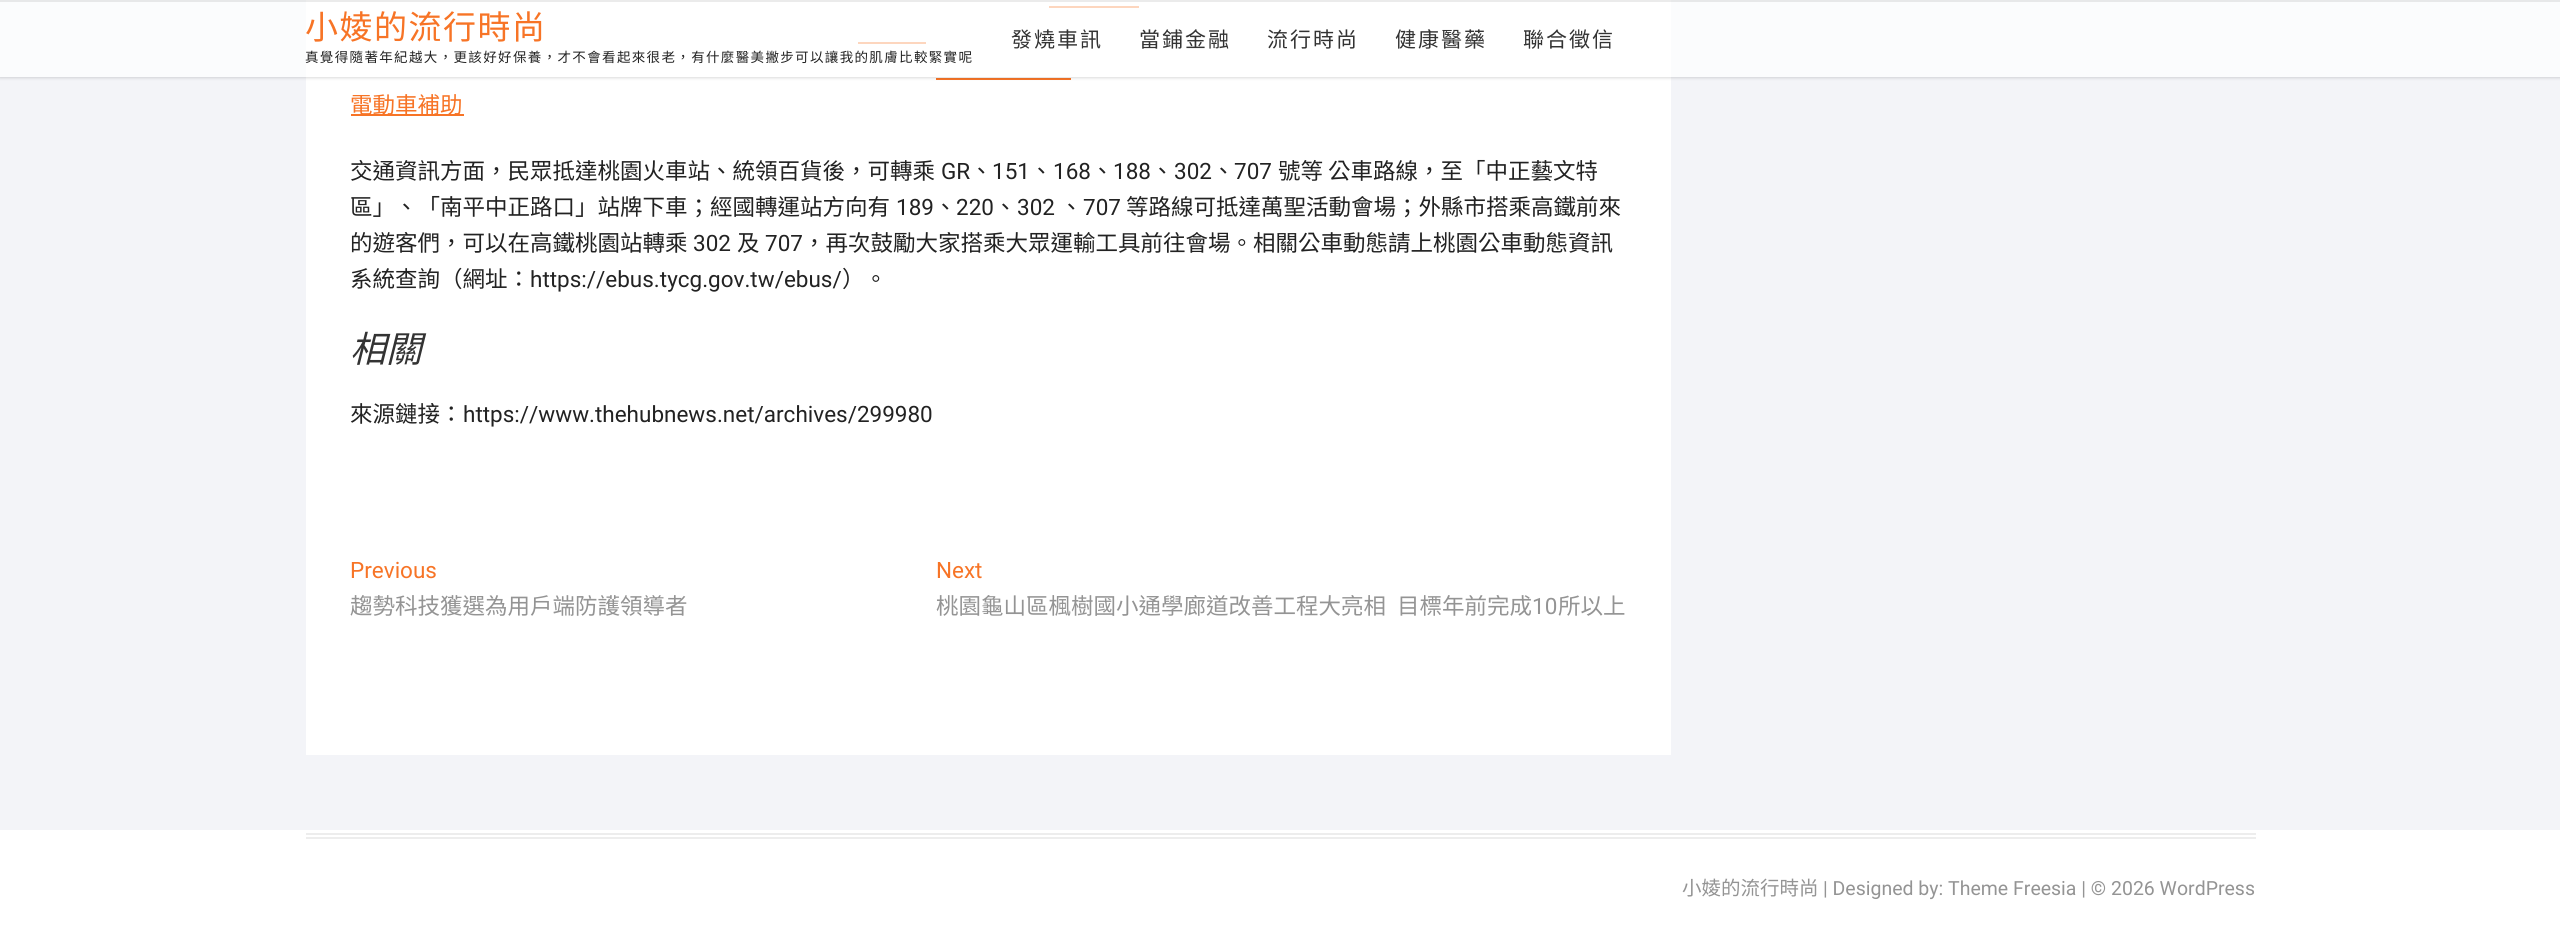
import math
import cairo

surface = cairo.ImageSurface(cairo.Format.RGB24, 2560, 929)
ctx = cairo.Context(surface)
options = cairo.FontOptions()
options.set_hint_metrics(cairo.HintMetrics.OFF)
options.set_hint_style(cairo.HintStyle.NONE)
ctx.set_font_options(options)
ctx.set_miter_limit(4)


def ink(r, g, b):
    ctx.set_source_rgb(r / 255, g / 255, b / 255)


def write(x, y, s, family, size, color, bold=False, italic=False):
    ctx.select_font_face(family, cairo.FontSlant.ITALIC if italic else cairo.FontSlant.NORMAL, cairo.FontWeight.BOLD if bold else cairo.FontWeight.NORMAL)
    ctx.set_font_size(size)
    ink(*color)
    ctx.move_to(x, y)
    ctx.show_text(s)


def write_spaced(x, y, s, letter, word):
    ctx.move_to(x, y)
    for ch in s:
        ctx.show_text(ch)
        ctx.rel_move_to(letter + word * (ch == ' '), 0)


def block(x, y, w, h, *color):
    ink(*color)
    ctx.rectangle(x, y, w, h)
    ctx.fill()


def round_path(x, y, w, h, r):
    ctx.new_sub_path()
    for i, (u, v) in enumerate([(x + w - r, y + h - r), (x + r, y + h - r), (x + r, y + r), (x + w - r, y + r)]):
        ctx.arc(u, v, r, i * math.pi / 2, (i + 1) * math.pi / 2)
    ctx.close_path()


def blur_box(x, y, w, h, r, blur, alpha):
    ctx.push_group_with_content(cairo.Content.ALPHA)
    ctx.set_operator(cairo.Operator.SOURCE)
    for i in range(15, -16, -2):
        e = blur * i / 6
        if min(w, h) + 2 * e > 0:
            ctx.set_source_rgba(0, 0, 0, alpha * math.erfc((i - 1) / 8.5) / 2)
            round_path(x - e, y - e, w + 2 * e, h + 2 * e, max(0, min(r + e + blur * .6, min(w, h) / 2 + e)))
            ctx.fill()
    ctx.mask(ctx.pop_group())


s1 = dict(family="Noto Sans CJK TC", size=22.5, color=(247, 116, 38))
s2 = dict(family="Noto Sans CJK TC", size=22.5, color=(34, 34, 34))
s3 = dict(family="Roboto", size=22.5, color=(34, 34, 34))
s4 = dict(family="Noto Sans CJK TC", size=36, color=(51, 51, 51), italic=True)
s5 = dict(family="Roboto", size=22.5, color=(247, 116, 38))
s6 = dict(family="Noto Sans CJK TC", size=22.5, color=(148, 148, 148))
s7 = dict(family="Roboto", size=22.5, color=(148, 148, 148))
s8 = dict(family="Noto Sans CJK TC", size=19.5, color=(148, 148, 148))
s9 = dict(family="Roboto", size=19.5, color=(148, 148, 148))

ink(243, 244, 248)
ctx.paint()
block(306, 0, 1365, 755, 255, 255, 255)
block(1049, 6, 90, 2, 247, 116, 38)
block(858, 42, 68, 2, 247, 116, 38)
block(936, 78, 135, 2, 247, 116, 38)
ctx.save()
ctx.set_fill_rule(cairo.FillRule.EVEN_ODD)
ctx.new_path()
ctx.move_to(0, 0)
ctx.line_to(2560, 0)
ctx.line_to(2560, 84)
ctx.line_to(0, 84)
ctx.close_path()
ctx.move_to(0, 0)
ctx.line_to(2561, 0)
ctx.line_to(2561, 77)
ctx.line_to(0, 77)
ctx.close_path()
ctx.clip()
ink(0, 0, 0)
blur_box(0, 2, 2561, 76, 0, 1.5, 0.15)
ctx.restore()
ctx.set_source_rgba(1, 1, 1, 0.7)
ctx.rectangle(0, 0, 2560, 77)
ctx.fill()
ctx.set_source_rgba(0, 0, 0, 0.08)
ctx.rectangle(0, 0, 2560, 2)
ctx.fill()
ctx.select_font_face("Noto Sans CJK TC")
ctx.set_font_size(33)
ink(247, 116, 38)
write_spaced(305, 39, "小婈的流行時尚", 1.5, 0)
ctx.set_font_size(13.5)
ink(34, 34, 34)
write_spaced(305, 62, "真覺得隨著年紀越大，更該好好保養，才不會看起來很老，有什麼醫美撇步可以讓我的肌膚比較緊實呢", 1.35, 0)
ctx.set_font_size(21)
ink(51, 51, 51)
write_spaced(1011, 47, "發燒車訊", 2, 0)
write_spaced(1139, 47, "當鋪金融", 2, 0)
write_spaced(1267, 47, "流行時尚", 2, 0)
write_spaced(1395, 47, "健康醫藥", 2, 0)
write_spaced(1523, 47, "聯合徵信", 2, 0)
block(351, 114, 113, 2, 247, 116, 38)
write(350, 113, "電動車補助", **s1)
write(350, 179, "交通資訊方面，民眾抵達桃園火車站、統領百貨後，可轉乘", **s2)
write(941, 179, "GR", **s3)
write(970, 179, "、", **s2)
write(992, 179, "151", **s3)
write(1030, 179, "、", **s2)
write(1053, 179, "168", **s3)
write(1091, 179, "、", **s2)
write(1113, 179, "188", **s3)
write(1151, 179, "、", **s2)
write(1174, 179, "302", **s3)
write(1212, 179, "、", **s2)
write(1234, 179, "707", **s3)
write(1278, 179, "號等", **s2)
write(1328, 179, "公車路線，至「中正藝文特", **s2)
write(350, 215, "區」、「南平中正路口」站牌下車；經國轉運站方向有", **s2)
write(896, 215, "189", **s3)
write(934, 215, "、", **s2)
write(956, 215, "220", **s3)
write(994, 215, "、", **s2)
write(1017, 215, "302", **s3)
write(1060, 215, "、", **s2)
write(1083, 215, "707", **s3)
write(1126, 215, "等路線可抵達萬聖活動會場；外縣市搭乘高鐵前來", **s2)
write(350, 251, "的遊客們，可以在高鐵桃園站轉乘", **s2)
write(693, 251, "302", **s3)
write(737, 251, "及", **s2)
write(765, 251, "707", **s3)
write(803, 251, "，再次鼓勵大家搭乘大眾運輸工具前往會場。相關公車動態請上桃園公車動態資訊", **s2)
write(350, 287, "系統查詢（網址：", **s2)
write(530, 287, "https://ebus.tycg.gov.tw/ebus/", **s3)
write(842, 287, "）。", **s2)
write(350, 362, "相關", **s4)
write(350, 422, "來源鏈接：", **s2)
write(463, 422, "https://www.thehubnews.net/archives/299980", **s3)
write(350, 578, "Previous", **s5)
write(350, 614, "趨勢科技獲選為用戶端防護領導者", **s6)
write(936, 578, "Next", **s5)
write(936, 614, "桃園龜山區楓樹國小通學廊道改善工程大亮相", **s6)
write(1397, 614, "目標年前完成", **s6)
write(1532, 614, "10", **s7)
write(1558, 614, "所以上", **s6)
block(0, 830, 2560, 99, 255, 255, 255)
block(306, 837, 1950, 2, 237, 237, 237)
block(306, 833, 1950, 2, 237, 237, 237)
write(1682, 895, "小婈的流行時尚", **s8)
write(1823, 895, "| Designed by: Theme Freesia | © 2026 WordPress", **s9)
surface.write_to_png("screenshot.png")
